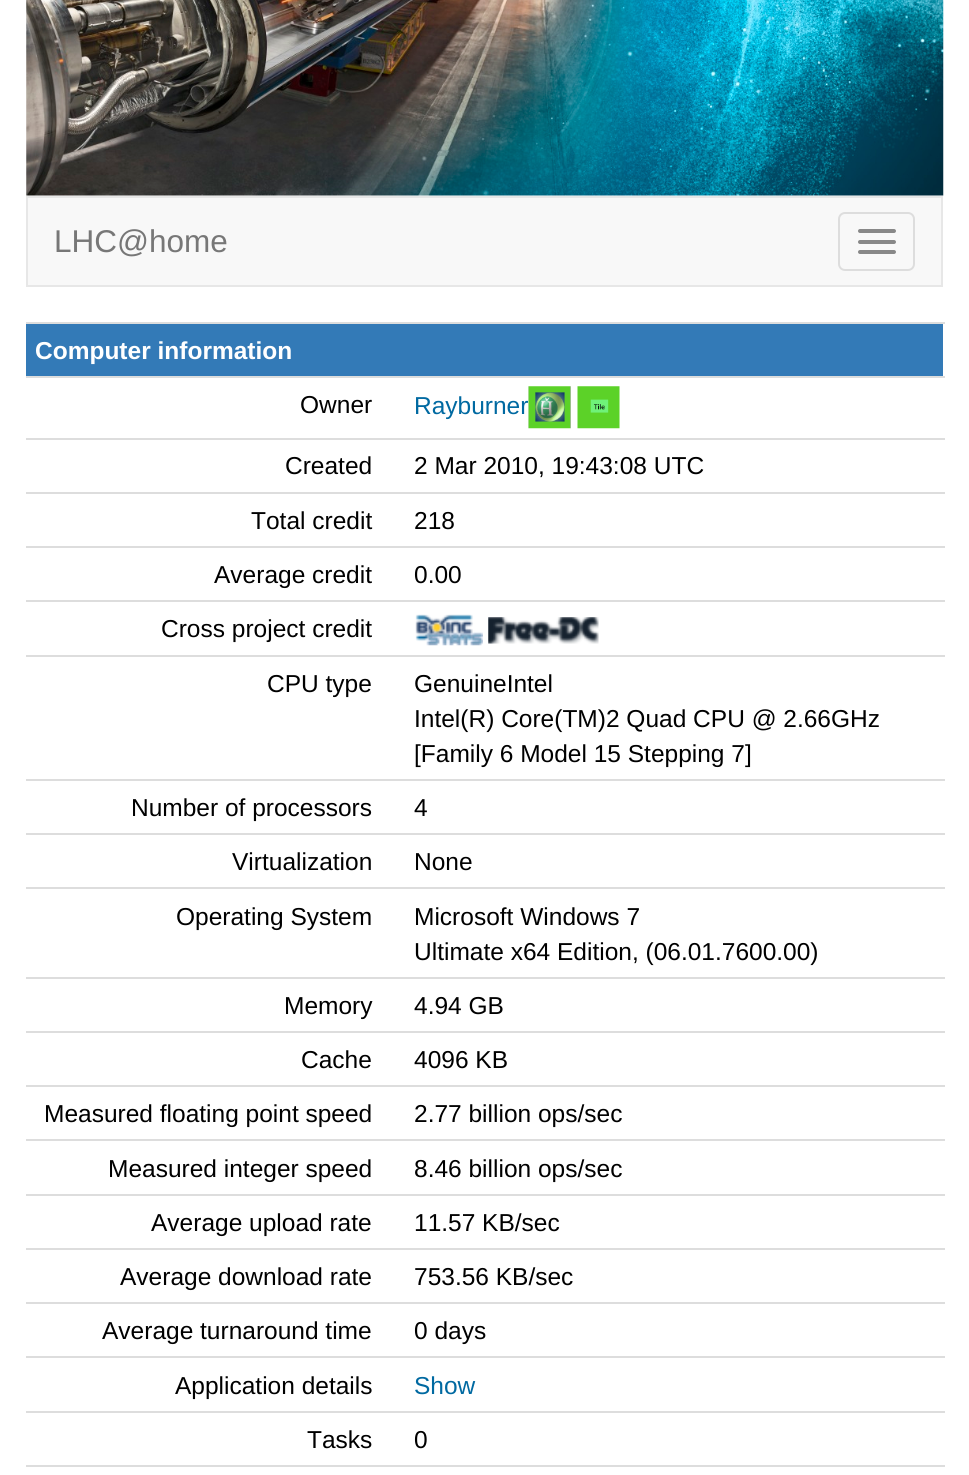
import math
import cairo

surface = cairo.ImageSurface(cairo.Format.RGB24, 969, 1475)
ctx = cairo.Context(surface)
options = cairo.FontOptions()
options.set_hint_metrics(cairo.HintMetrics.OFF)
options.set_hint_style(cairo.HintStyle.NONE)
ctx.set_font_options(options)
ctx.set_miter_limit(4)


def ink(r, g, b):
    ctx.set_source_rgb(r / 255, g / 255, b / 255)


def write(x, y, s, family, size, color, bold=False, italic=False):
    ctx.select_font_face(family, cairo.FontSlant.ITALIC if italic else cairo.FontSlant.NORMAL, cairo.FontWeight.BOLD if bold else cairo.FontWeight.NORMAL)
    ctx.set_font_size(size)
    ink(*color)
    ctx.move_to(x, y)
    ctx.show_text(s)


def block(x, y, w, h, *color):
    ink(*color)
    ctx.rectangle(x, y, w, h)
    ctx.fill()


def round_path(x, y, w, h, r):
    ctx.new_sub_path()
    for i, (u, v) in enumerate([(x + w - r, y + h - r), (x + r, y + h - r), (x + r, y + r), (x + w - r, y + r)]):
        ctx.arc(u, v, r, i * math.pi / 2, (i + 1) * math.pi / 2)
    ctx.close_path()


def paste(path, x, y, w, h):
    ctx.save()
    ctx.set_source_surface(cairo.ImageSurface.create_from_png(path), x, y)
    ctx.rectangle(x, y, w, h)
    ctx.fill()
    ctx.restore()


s1 = dict(family="Liberation Sans", size=31.5, color=(119, 119, 119))
s2 = dict(family="Liberation Sans", size=24.5, color=(255, 255, 255), bold=True)
s3 = dict(family="Liberation Sans", size=24.5, color=(0, 0, 0))
s4 = dict(family="Liberation Sans", size=24.5, color=(0, 105, 161))

ink(255, 255, 255)
ctx.paint()
paste("pic1.png", 26, 0, 918, 196)
ink(248, 248, 248)
ctx.rectangle(27, 197, 915, 89)
ctx.fill_preserve()
ink(231, 231, 231)
ctx.stroke()
write(54, 252, "LHC@home", **s1)
round_path(839, 213, 75, 57, 6)
ink(221, 221, 221)
ctx.stroke()
ink(136, 136, 136)
round_path(858, 229, 38, 4, 2)
ctx.fill()
round_path(858, 240, 38, 4, 2)
ctx.fill()
round_path(858, 250, 38, 4, 2)
ctx.fill()
block(26, 324, 917, 52, 51, 122, 183)
block(26, 322, 919, 2, 221, 221, 221)
write(35, 359, "Computer information", **s2)
write(300, 413, "Owner", **s3)
block(26, 376, 919, 2, 221, 221, 221)
write(414, 414, "Rayburner", **s4)
paste("pic2.png", 528, 386, 43, 43)
paste("pic3.png", 577, 386, 43, 43)
write(285, 474, "Created", **s3)
block(26, 438, 919, 2, 221, 221, 221)
write(414, 474, "2 Mar 2010, 19:43:08 UTC", **s3)
write(251, 529, "Total credit", **s3)
block(26, 492, 919, 2, 221, 221, 221)
write(414, 529, "218", **s3)
write(214, 583, "Average credit", **s3)
block(26, 546, 919, 2, 221, 221, 221)
write(414, 583, "0.00", **s3)
block(26, 600, 919, 2, 221, 221, 221)
paste("pic4.png", 415, 614, 68, 32)
paste("pic5.png", 488, 617, 111, 27)
write(161, 637, "Cross project credit", **s3)
write(267, 692, "CPU type", **s3)
block(26, 655, 919, 2, 221, 221, 221)
write(414, 692, "GenuineIntel", **s3)
write(414, 727, "Intel(R) Core(TM)2 Quad CPU @ 2.66GHz", **s3)
write(414, 762, "[Family 6 Model 15 Stepping 7]", **s3)
write(131, 816, "Number of processors", **s3)
block(26, 779, 919, 2, 221, 221, 221)
write(414, 816, "4", **s3)
write(232, 870, "Virtualization", **s3)
block(26, 833, 919, 2, 221, 221, 221)
write(414, 870, "None", **s3)
write(176, 925, "Operating System", **s3)
block(26, 887, 919, 2, 221, 221, 221)
write(414, 925, "Microsoft Windows 7", **s3)
write(414, 960, "Ultimate x64 Edition, (06.01.7600.00)", **s3)
write(284, 1014, "Memory", **s3)
block(26, 977, 919, 2, 221, 221, 221)
write(414, 1014, "4.94 GB", **s3)
write(301, 1068, "Cache", **s3)
block(26, 1031, 919, 2, 221, 221, 221)
write(414, 1068, "4096 KB", **s3)
write(44, 1122, "Measured floating point speed", **s3)
block(26, 1085, 919, 2, 221, 221, 221)
write(414, 1122, "2.77 billion ops/sec", **s3)
write(108, 1177, "Measured integer speed", **s3)
block(26, 1139, 919, 2, 221, 221, 221)
write(414, 1177, "8.46 billion ops/sec", **s3)
write(151, 1231, "Average upload rate", **s3)
block(26, 1194, 919, 2, 221, 221, 221)
write(414, 1231, "11.57 KB/sec", **s3)
write(120, 1285, "Average download rate", **s3)
block(26, 1248, 919, 2, 221, 221, 221)
write(414, 1285, "753.56 KB/sec", **s3)
write(102, 1339, "Average turnaround time", **s3)
block(26, 1302, 919, 2, 221, 221, 221)
write(414, 1339, "0 days", **s3)
write(175, 1394, "Application details", **s3)
block(26, 1356, 919, 2, 221, 221, 221)
write(414, 1394, "Show", **s4)
write(307, 1448, "Tasks", **s3)
block(26, 1411, 919, 2, 221, 221, 221)
write(414, 1448, "0", **s3)
block(26, 1465, 919, 2, 221, 221, 221)
surface.write_to_png("screenshot.png")
